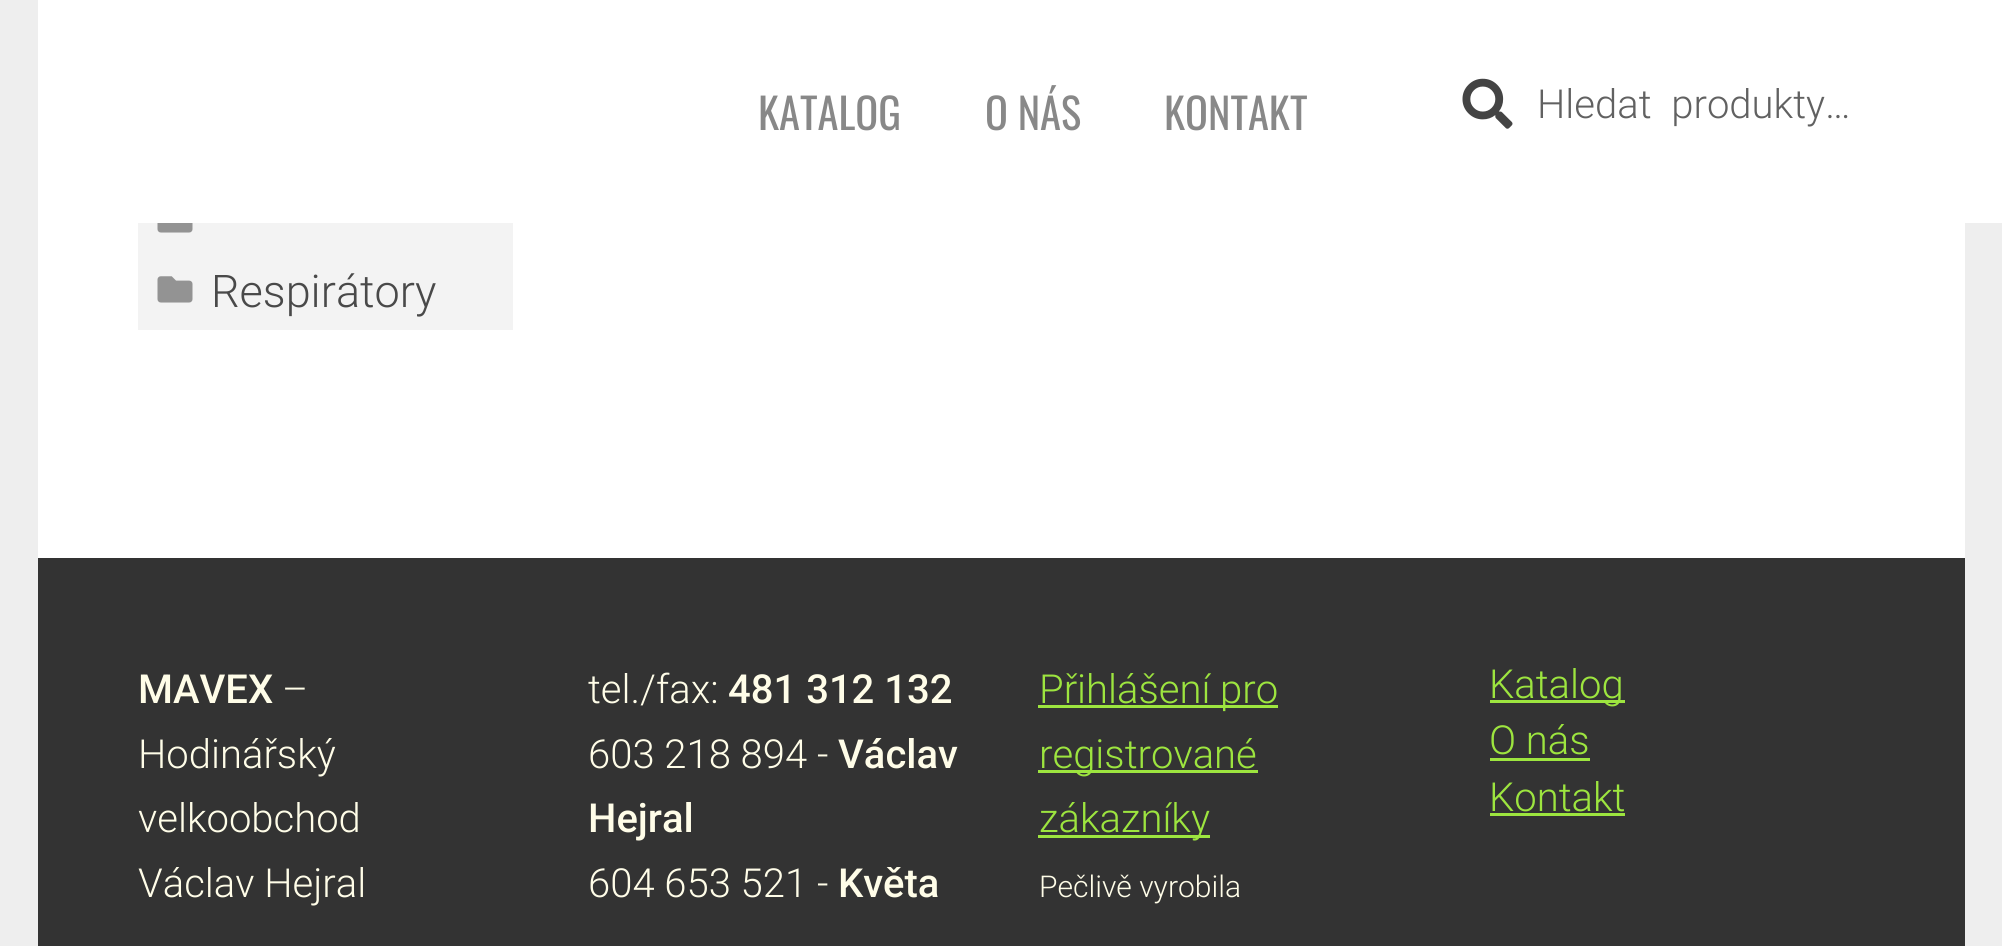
import math
import cairo

surface = cairo.ImageSurface(cairo.Format.RGB24, 2002, 946)
ctx = cairo.Context(surface)
options = cairo.FontOptions()
options.set_hint_metrics(cairo.HintMetrics.OFF)
options.set_hint_style(cairo.HintStyle.NONE)
ctx.set_font_options(options)
ctx.set_miter_limit(4)


def ink(r, g, b):
    ctx.set_source_rgb(r / 255, g / 255, b / 255)


def write(x, y, s, family, size, color, bold=False, italic=False):
    ctx.select_font_face(family, cairo.FontSlant.ITALIC if italic else cairo.FontSlant.NORMAL, cairo.FontWeight.BOLD if bold else cairo.FontWeight.NORMAL)
    ctx.set_font_size(size)
    ink(*color)
    ctx.move_to(x, y)
    ctx.show_text(s)


def write_spaced(x, y, s, letter, word):
    ctx.move_to(x, y)
    for ch in s:
        ctx.show_text(ch)
        ctx.rel_move_to(letter + word * (ch == ' '), 0)


def block(x, y, w, h, *color):
    ink(*color)
    ctx.rectangle(x, y, w, h)
    ctx.fill()


def paste(path, x, y, w, h):
    ctx.save()
    ctx.set_source_surface(cairo.ImageSurface.create_from_png(path), x, y)
    ctx.rectangle(x, y, w, h)
    ctx.fill()
    ctx.restore()


s1 = dict(family="Oswald", size=42.5, color=(136, 136, 136))
s2 = dict(family="Roboto Light", size=45, color=(73, 73, 73))
s3 = dict(family="Roboto Medium", size=40, color=(255, 253, 232))
s4 = dict(family="Roboto Light", size=40, color=(255, 253, 232))
s5 = dict(family="Roboto Light", size=40, color=(157, 229, 63))
s6 = dict(family="Roboto Light", size=30, color=(255, 253, 232))

ink(238, 238, 238)
ctx.paint()
block(38, 0, 1964, 223, 255, 255, 255)
write(758, 130, "KATALOG", **s1)
write(985, 130, "O NÁS", **s1)
write(1164, 130, "KONTAKT", **s1)
paste("pic1.png", 1462, 78, 51, 51)
ctx.select_font_face("Roboto Light")
ctx.set_font_size(40)
ink(97, 97, 97)
write_spaced(1537, 118, "Hledat produkty…", 0, 10)
block(38, 223, 1927, 335, 255, 255, 255)
block(138, 223, 375, 107, 243, 243, 243)
paste("pic2.png", 157, 223, 36, 10)
paste("pic3.png", 157, 276, 36, 27)
write(211, 307, "Respirátory", **s2)
block(38, 558, 1927, 388, 51, 51, 51)
write(138, 703, "MAVEX", **s3)
write(282, 703, "–", **s4)
write(138, 768, "Hodinářský", **s4)
write(138, 832, "velkoobchod", **s4)
write(138, 897, "Václav Hejral", **s4)
write(588, 703, "tel./fax:", **s4)
write(728, 703, "481 312 132", **s3)
write(588, 768, "603 218 894 -", **s4)
write(838, 768, "Václav", **s3)
write(588, 832, "Hejral", **s3)
write(588, 897, "604 653 521 -", **s4)
write(838, 897, "Květa", **s3)
block(1038, 705, 240, 3, 157, 229, 63)
write(1039, 703, "Přihlášení pro", **s5)
block(1038, 770, 220, 3, 157, 229, 63)
write(1039, 768, "registrované", **s5)
block(1038, 835, 172, 3, 157, 229, 63)
write(1039, 832, "zákazníky", **s5)
write(1039, 897, "Pečlivě vyrobila", **s6)
block(1490, 700, 135, 3, 157, 229, 63)
write(1489, 698, "Katalog", **s5)
write(1489, 754, "O nás", **s5)
block(1490, 758, 100, 3, 157, 229, 63)
write(1489, 811, "Kontakt", **s5)
block(1490, 813, 135, 3, 157, 229, 63)
surface.write_to_png("screenshot.png")
